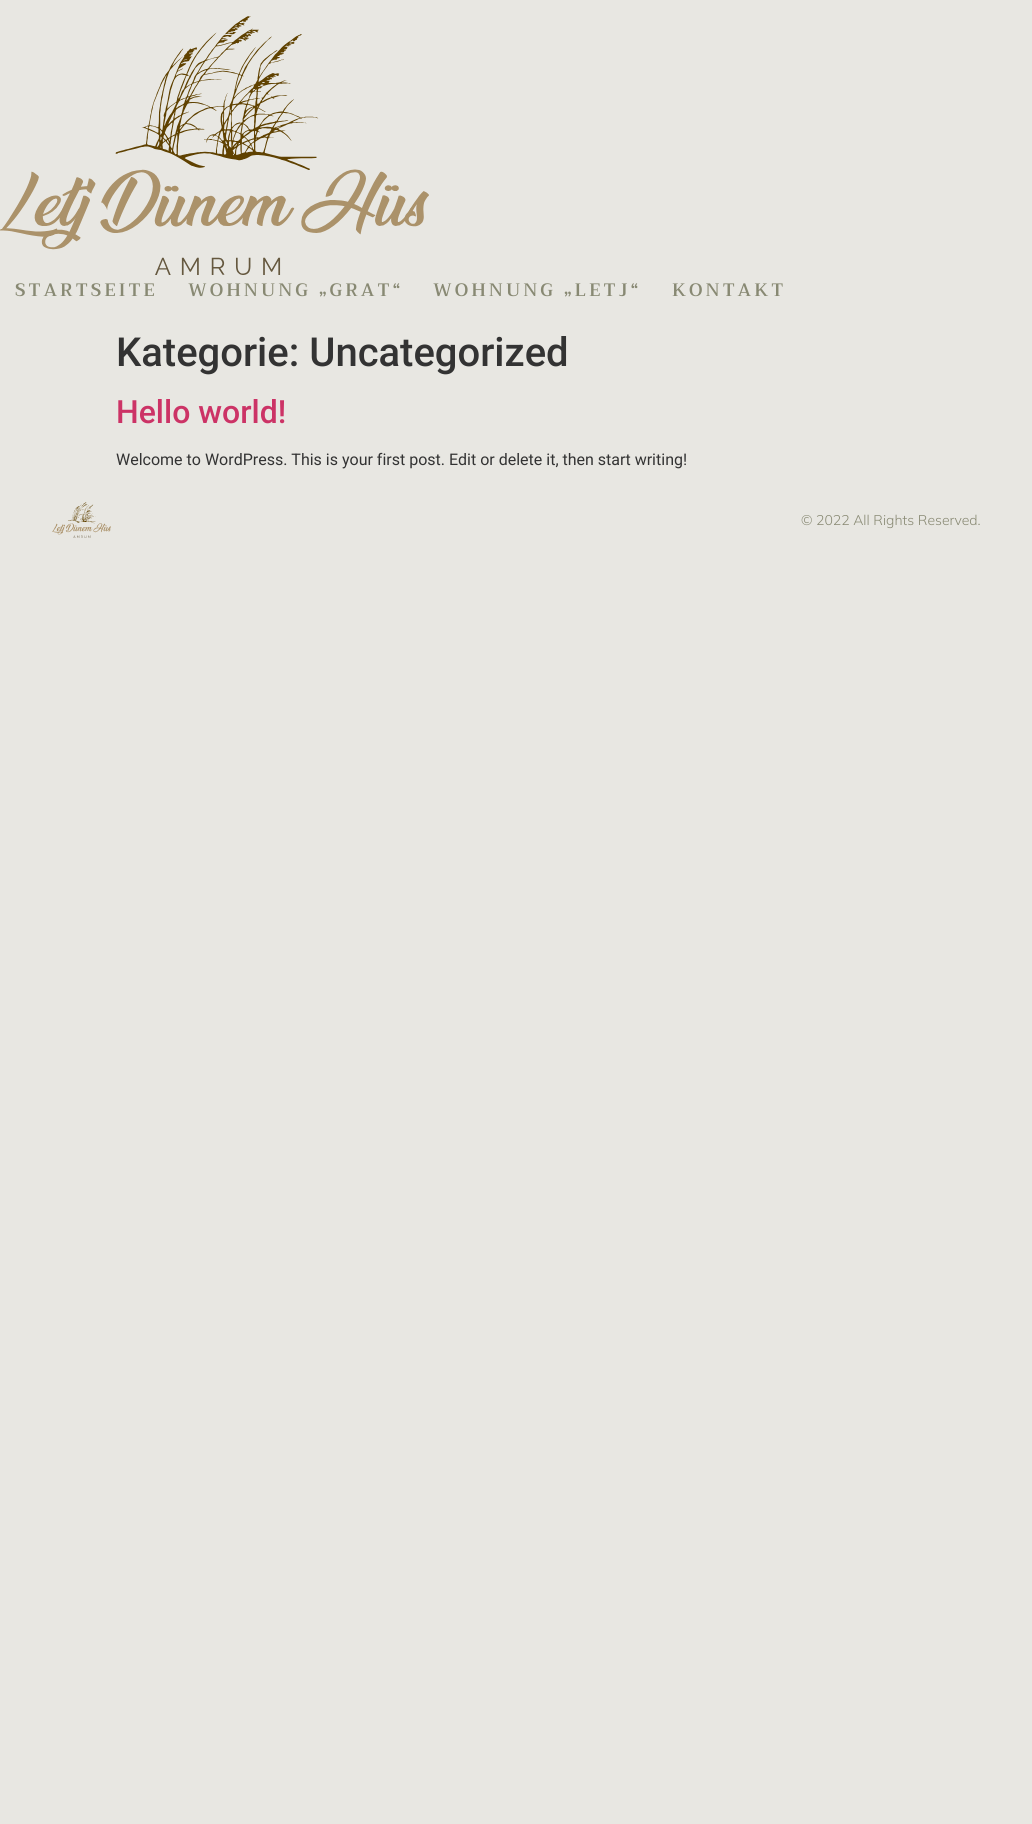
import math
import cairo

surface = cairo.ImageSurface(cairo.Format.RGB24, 1032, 1824)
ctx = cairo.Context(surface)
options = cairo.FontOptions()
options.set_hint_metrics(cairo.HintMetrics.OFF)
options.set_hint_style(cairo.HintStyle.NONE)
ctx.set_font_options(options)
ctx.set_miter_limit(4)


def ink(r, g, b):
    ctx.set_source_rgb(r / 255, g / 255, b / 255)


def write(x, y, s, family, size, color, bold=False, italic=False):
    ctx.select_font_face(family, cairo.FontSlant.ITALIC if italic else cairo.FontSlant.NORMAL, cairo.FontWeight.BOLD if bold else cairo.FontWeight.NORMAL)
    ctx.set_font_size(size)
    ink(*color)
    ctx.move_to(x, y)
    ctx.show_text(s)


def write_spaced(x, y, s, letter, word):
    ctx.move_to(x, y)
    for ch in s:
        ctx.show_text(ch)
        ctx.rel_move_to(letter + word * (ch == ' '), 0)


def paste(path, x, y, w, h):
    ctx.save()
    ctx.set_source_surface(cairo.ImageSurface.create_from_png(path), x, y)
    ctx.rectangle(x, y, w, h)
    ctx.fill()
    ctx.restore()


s1 = dict(family="Roboto Medium", size=40, color=(51, 51, 51))
s2 = dict(family="Roboto Medium", size=32, color=(204, 51, 102))
s3 = dict(family="Roboto", size=16, color=(51, 51, 51))
s4 = dict(family="Mulish Light", size=14, color=(136, 137, 115))

ink(232, 231, 226)
ctx.paint()
paste("pic1.png", 0, 16, 429, 259)
ctx.select_font_face("Trirong SemiBold")
ctx.set_font_size(18)
ink(136, 137, 115)
write_spaced(15, 296, "STARTSEITE", 3, 0)
write_spaced(188, 296, "WOHNUNG „GRAT“", 3, 0)
write_spaced(433, 296, "WOHNUNG „LETJ“", 3, 0)
write_spaced(672, 296, "KONTAKT", 3, 0)
write(116, 366, "Kategorie: Uncategorized", **s1)
write(116, 423, "Hello world!", **s2)
write(116, 465, "Welcome to WordPress. This is your first post. Edit or delete it, then start writing!", **s3)
paste("pic2.png", 52, 502, 59, 36)
write(801, 525, "© 2022 All Rights Reserved.", **s4)
surface.write_to_png("screenshot.png")
